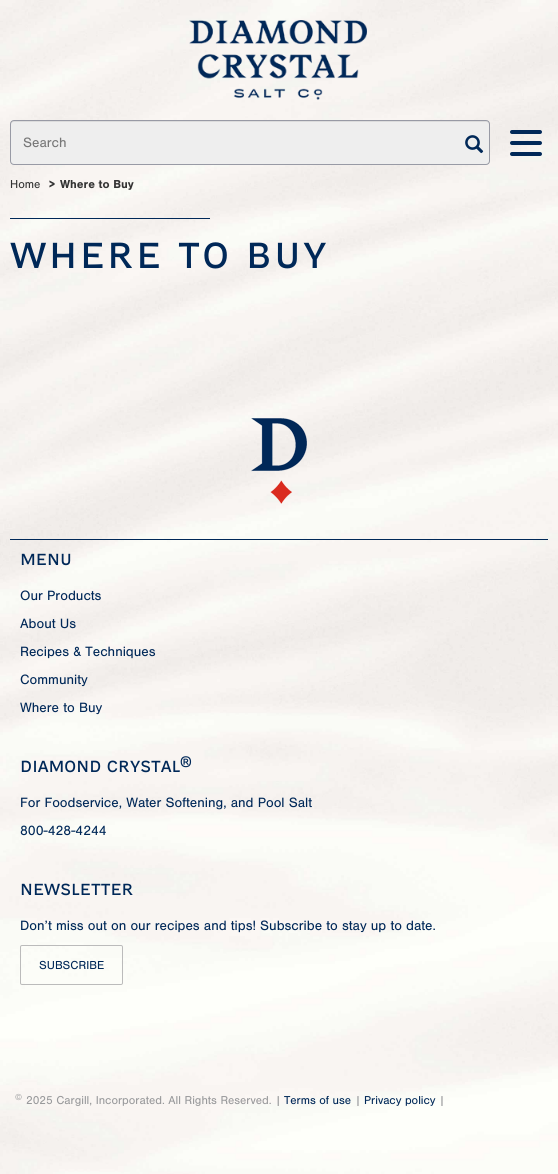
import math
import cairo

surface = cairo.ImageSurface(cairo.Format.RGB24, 558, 1174)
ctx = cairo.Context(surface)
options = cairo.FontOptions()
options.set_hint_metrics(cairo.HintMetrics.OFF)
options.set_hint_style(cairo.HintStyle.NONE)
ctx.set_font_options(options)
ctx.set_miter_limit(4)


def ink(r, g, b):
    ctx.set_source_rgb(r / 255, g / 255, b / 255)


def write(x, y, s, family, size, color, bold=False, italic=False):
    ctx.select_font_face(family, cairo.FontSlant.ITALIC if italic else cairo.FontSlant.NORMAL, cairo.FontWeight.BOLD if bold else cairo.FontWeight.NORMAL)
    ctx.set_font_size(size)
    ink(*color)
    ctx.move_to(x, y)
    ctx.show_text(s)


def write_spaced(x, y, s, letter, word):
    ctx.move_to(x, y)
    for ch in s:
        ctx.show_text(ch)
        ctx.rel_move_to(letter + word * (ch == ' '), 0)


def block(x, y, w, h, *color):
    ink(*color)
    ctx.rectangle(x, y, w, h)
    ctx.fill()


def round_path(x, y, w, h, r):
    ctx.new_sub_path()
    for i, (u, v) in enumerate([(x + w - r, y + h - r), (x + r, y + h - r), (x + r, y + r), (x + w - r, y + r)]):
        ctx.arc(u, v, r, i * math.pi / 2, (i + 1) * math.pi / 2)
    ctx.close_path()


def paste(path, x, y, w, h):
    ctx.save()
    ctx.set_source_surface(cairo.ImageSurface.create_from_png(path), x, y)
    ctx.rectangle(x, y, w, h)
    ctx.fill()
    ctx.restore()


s1 = dict(family="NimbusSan", size=14, color=(119, 119, 119))
s2 = dict(family="NimbusSan", size=12, color=(51, 51, 51))
s3 = dict(family="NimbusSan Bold", size=12, color=(51, 51, 51), bold=True)
s4 = dict(family="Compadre", size=16, color=(0, 40, 88))
s5 = dict(family="NimbusSan", size=14, color=(0, 40, 88))
s6 = dict(family="Compadre", size=12, color=(0, 40, 88))
s7 = dict(family="NimbusSan", size=12, color=(0, 40, 88))
s8 = dict(family="NimbusSan", size=9, color=(152, 153, 155))
s9 = dict(family="NimbusSan", size=11.9, color=(152, 153, 155))
s10 = dict(family="NimbusSan", size=11.9, color=(0, 40, 88))

ink(255, 255, 255)
ctx.paint()
paste("pic1.png", 0, 0, 558, 1174)
paste("pic2.png", 189, 20, 178, 80)
ink(238, 238, 238)
round_path(10, 120, 480, 45, 4)
ctx.fill()
ink(220, 220, 220)
ctx.new_path()
ctx.move_to(14, 122)
ctx.line_to(486, 122)
ctx.curve_to(488, 122, 489, 123, 489, 125)
ctx.line_to(489, 123)
ctx.line_to(487, 121)
ctx.line_to(13, 121)
ctx.curve_to(11, 121, 11, 123, 11, 125)
ctx.curve_to(11, 123, 12, 122, 14, 122)
ctx.close_path()
ctx.fill()
round_path(10.5, 120.5, 479, 44, 3.5)
ink(152, 154, 165)
ctx.set_line_width(1)
ctx.stroke()
write(23, 147, "Search", **s1)
paste("pic3.png", 465, 135, 19, 19)
ink(0, 40, 88)
round_path(510, 130, 32, 4, 2)
ctx.fill()
round_path(510, 141, 32, 4, 2)
ctx.fill()
round_path(510, 152, 32, 4, 2)
ctx.fill()
write(10, 188, "Home", **s2)
write(49, 188, ">", **s3)
write(60, 188, "Where to Buy", **s3)
block(10, 218, 200, 1, 0, 40, 88)
ctx.select_font_face("Compadre")
ctx.set_font_size(36)
write_spaced(10, 268, "WHERE TO BUY", 2.3, 0)
paste("pic4.png", 251, 418, 56, 86)
block(10, 539, 538, 1, 0, 40, 88)
write(20, 565, "MENU", **s4)
write(20, 600, "Our Products", **s5)
write(20, 628, "About Us", **s5)
write(20, 656, "Recipes & Techniques", **s5)
write(20, 684, "Community", **s5)
write(20, 712, "Where to Buy", **s5)
write(20, 772, "DIAMOND CRYSTAL", **s4)
write(180, 766, "®", **s6)
write(20, 807, "For Foodservice, Water Softening, and Pool Salt", **s5)
write(20, 835, "800-428-4244", **s5)
write(20, 895, "NEWSLETTER", **s4)
write(20, 930, "Don’t miss out on our recipes and tips! Subscribe to stay up to date.", **s5)
round_path(20.5, 945.5, 102, 39, 1.5)
ink(187, 187, 187)
ctx.stroke()
write(39, 969, "SUBSCRIBE", **s7)
write(15, 1100, "©", **s8)
write(26, 1104, "2025 Cargill, Incorporated. All Rights Reserved. |", **s9)
write(284, 1104, "Terms of use", **s10)
write(355, 1104, "|", **s9)
write(364, 1104, "Privacy policy", **s10)
write(439, 1104, "|", **s9)
surface.write_to_png("screenshot.png")
